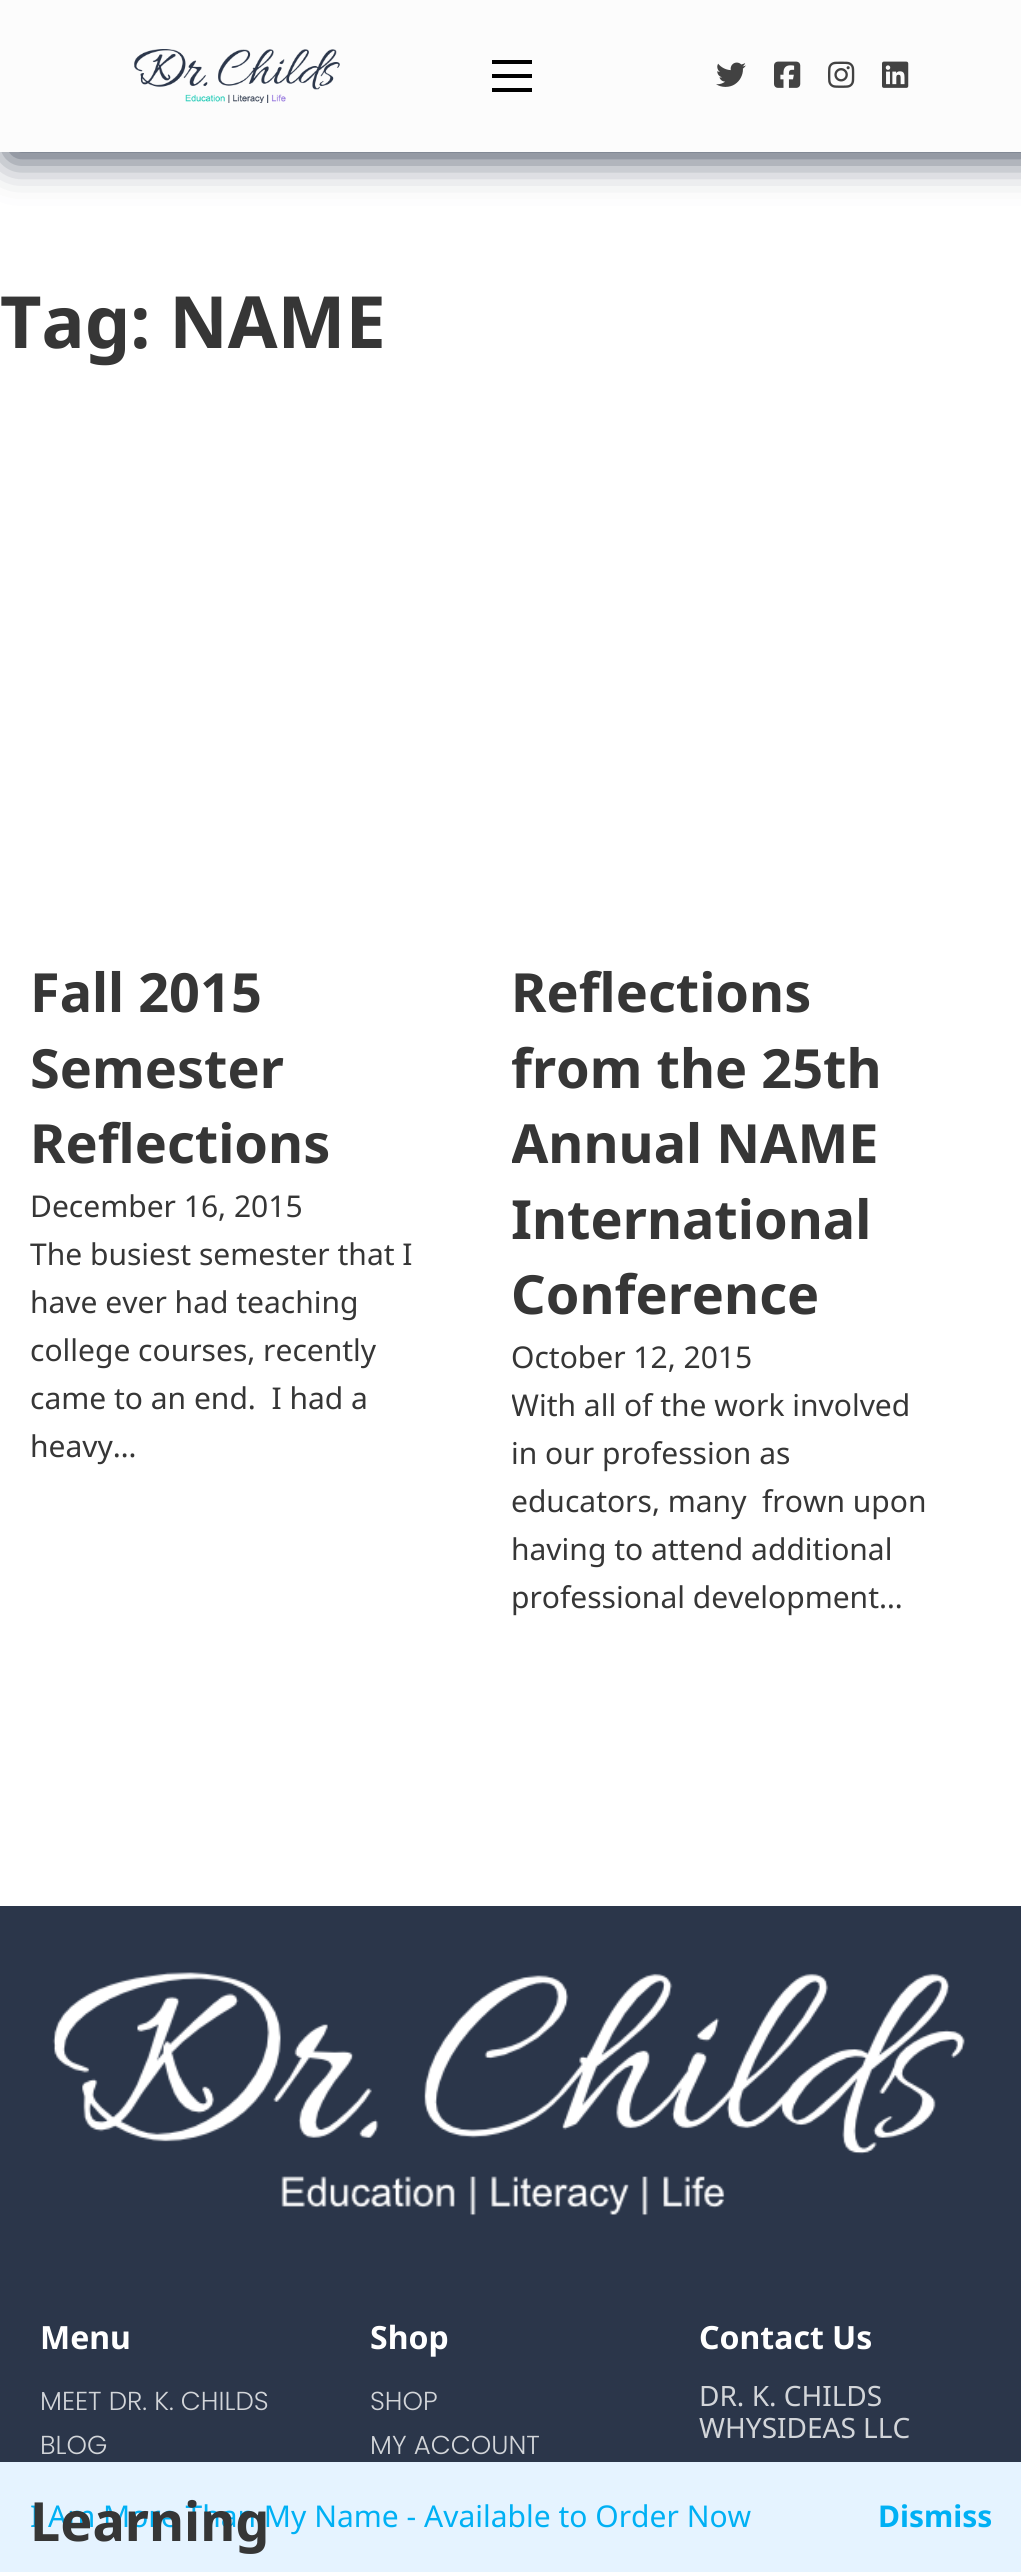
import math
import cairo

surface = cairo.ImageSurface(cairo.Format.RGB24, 1021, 2572)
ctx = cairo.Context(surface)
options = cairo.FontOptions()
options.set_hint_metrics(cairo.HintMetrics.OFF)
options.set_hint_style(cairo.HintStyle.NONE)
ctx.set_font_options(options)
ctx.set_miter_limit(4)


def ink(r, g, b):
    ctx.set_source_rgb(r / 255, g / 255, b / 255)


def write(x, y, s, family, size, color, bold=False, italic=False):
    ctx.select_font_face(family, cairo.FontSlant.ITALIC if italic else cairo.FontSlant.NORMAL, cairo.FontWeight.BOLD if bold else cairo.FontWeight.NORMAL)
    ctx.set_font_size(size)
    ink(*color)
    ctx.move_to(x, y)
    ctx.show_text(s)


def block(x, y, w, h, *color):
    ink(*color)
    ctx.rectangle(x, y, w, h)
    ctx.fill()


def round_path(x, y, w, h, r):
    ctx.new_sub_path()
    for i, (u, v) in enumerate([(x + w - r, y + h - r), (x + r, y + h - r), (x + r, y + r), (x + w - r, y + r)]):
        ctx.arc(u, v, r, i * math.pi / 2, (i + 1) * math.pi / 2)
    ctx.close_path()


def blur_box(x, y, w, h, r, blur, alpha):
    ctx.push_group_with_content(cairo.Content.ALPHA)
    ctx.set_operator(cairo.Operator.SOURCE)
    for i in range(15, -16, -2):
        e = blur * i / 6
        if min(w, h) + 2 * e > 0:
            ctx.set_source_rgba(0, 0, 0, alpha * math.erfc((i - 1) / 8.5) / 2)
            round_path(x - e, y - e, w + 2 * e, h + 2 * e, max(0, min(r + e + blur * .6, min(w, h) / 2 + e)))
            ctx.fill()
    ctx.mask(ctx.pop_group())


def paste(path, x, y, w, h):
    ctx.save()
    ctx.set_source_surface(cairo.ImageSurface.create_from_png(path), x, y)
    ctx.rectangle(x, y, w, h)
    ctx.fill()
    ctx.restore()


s1 = dict(family="Noto Sans", size=72, color=(54, 54, 54), bold=True)
s2 = dict(family="Noto Sans", size=54, color=(54, 54, 54), bold=True)
s3 = dict(family="Noto Sans", size=30, color=(54, 54, 54))
s4 = dict(family="Noto Sans", size=30, color=(0, 176, 244))
s5 = dict(family="Noto Sans", size=32, color=(255, 255, 255), bold=True)
s6 = dict(family="Poppins Light", size=26, color=(210, 213, 217))
s7 = dict(family="Noto Sans", size=28, color=(210, 213, 217))
s8 = dict(family="Noto Sans", size=30, color=(0, 176, 244), bold=True)

ink(255, 255, 255)
ctx.paint()
ink(43, 54, 74)
blur_box(10, 4, 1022, 152, 0, 20, 1)
block(0, 0, 1021, 152, 252, 252, 252)
paste("pic1.png", 134, 49, 206, 54)
block(492, 60, 40, 4, 0, 0, 0)
block(492, 74, 40, 4, 0, 0, 0)
block(492, 88, 40, 4, 0, 0, 0)
paste("pic2.png", 716, 62, 30, 25)
paste("pic3.png", 774, 61, 27, 27)
paste("pic4.png", 828, 61, 27, 27)
paste("pic5.png", 882, 61, 27, 27)
write(0, 348, "Tag: NAME", **s1)
write(30, 1012, "Fall 2015", **s2)
write(30, 1088, "Semester", **s2)
write(30, 1163, "Reflections", **s2)
write(30, 1217, "December 16, 2015", **s3)
write(30, 1265, "The busiest semester that I", **s3)
write(30, 1313, "have ever had teaching", **s3)
write(30, 1361, "college courses, recently", **s3)
write(30, 1409, "came to an end.  I had a", **s3)
write(30, 1457, "heavy…", **s3)
write(511, 1012, "Reflections", **s2)
write(511, 1088, "from the 25th", **s2)
ctx.save()
ctx.rectangle(512, 492, 420, 1168)
ctx.clip()
write(511, 1163, "Annual NAME", **s2)
ctx.restore()
write(511, 1239, "International", **s2)
write(511, 1314, "Conference", **s2)
write(511, 1368, "October 12, 2015", **s3)
ctx.save()
ctx.rectangle(512, 492, 420, 1168)
ctx.clip()
write(511, 1416, "With all of the work involved", **s3)
ctx.restore()
write(511, 1464, "in our profession as", **s3)
write(511, 1512, "educators, many  frown upon", **s3)
write(511, 1560, "having to attend additional", **s3)
write(511, 1608, "professional development…", **s3)
block(0, 2462, 1021, 110, 229, 243, 255)
write(30, 2527, "I Am More Than My Name - Available to Order Now", **s4)
write(30, 2541, "Learning", **s2)
block(0, 1906, 1021, 556, 43, 54, 74)
paste("pic6.png", 52, 1972, 913, 244)
write(40, 2349, "Menu", **s5)
write(40, 2410, "MEET DR. K. CHILDS", **s6)
write(40, 2454, "BLOG", **s6)
write(370, 2349, "Shop", **s5)
write(370, 2410, "SHOP", **s6)
write(370, 2454, "MY ACCOUNT", **s6)
write(699, 2349, "Contact Us", **s5)
write(699, 2406, "DR. K. CHILDS", **s7)
write(699, 2438, "WHYSIDEAS LLC", **s7)
write(878, 2527, "Dismiss", **s8)
surface.write_to_png("screenshot.png")
